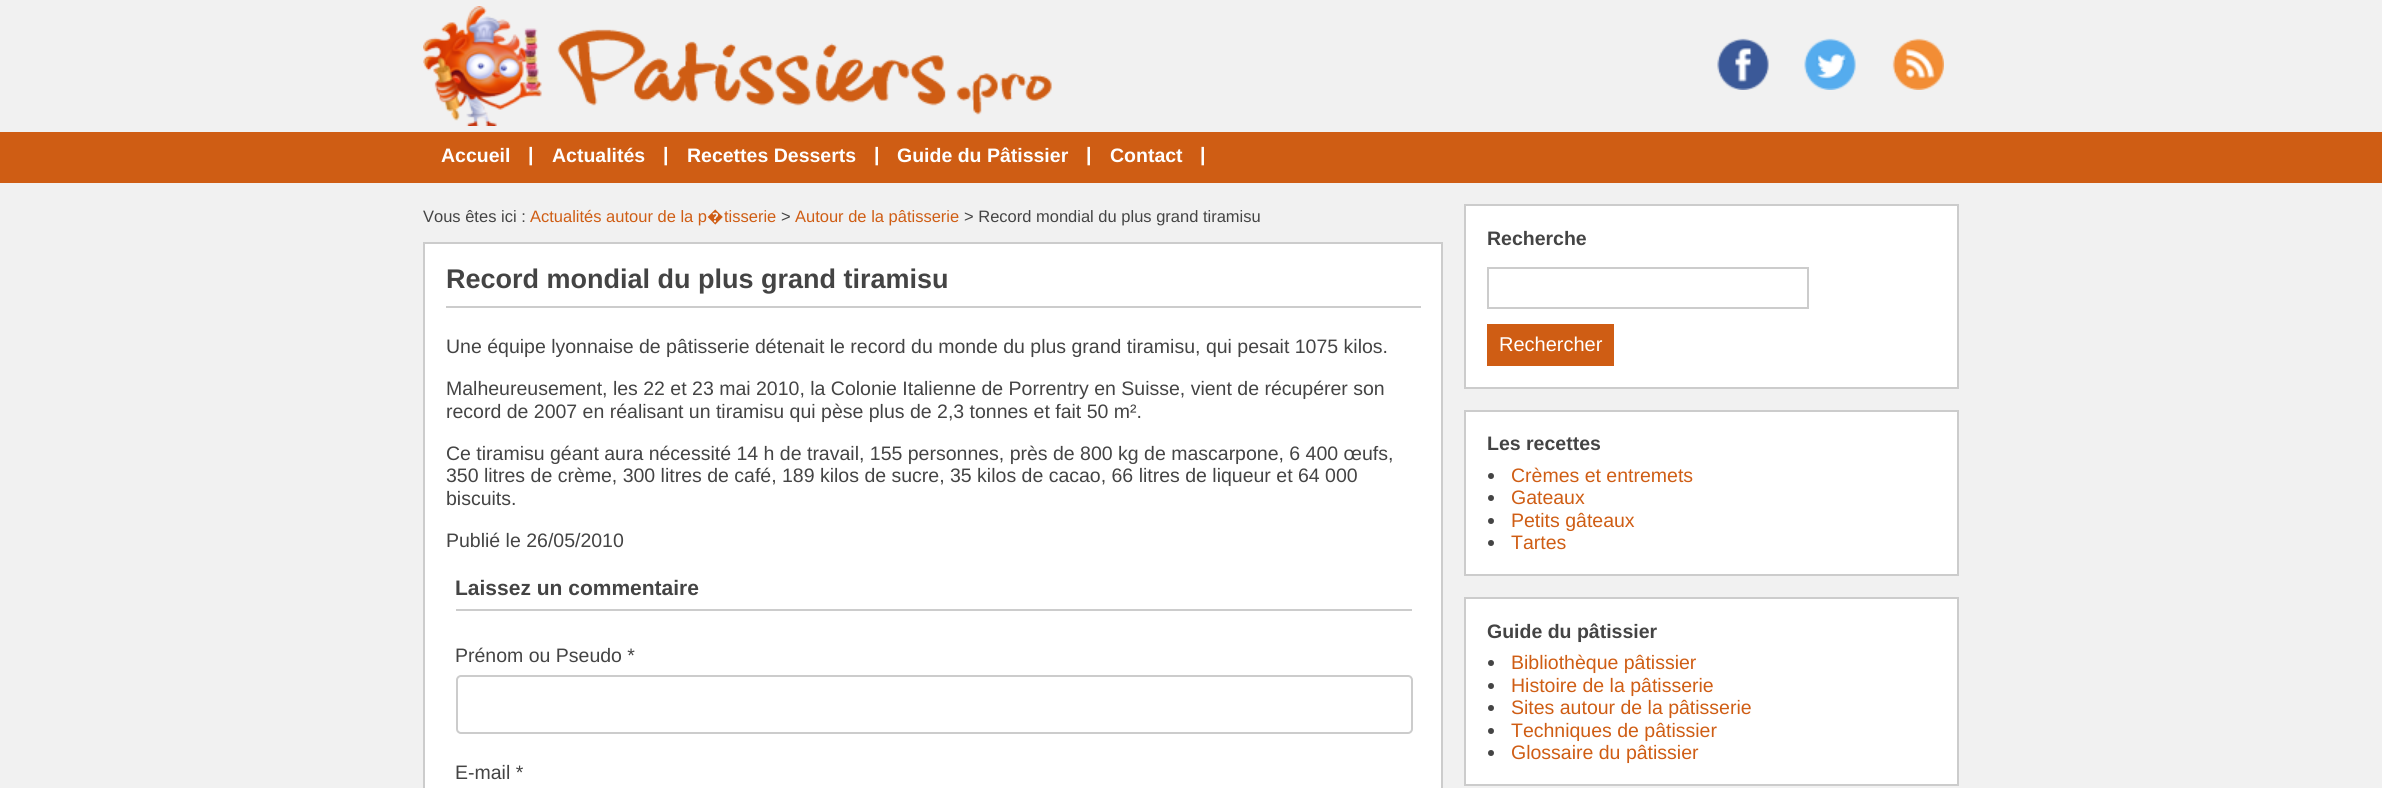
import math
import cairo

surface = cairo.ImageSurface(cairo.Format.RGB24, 2382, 788)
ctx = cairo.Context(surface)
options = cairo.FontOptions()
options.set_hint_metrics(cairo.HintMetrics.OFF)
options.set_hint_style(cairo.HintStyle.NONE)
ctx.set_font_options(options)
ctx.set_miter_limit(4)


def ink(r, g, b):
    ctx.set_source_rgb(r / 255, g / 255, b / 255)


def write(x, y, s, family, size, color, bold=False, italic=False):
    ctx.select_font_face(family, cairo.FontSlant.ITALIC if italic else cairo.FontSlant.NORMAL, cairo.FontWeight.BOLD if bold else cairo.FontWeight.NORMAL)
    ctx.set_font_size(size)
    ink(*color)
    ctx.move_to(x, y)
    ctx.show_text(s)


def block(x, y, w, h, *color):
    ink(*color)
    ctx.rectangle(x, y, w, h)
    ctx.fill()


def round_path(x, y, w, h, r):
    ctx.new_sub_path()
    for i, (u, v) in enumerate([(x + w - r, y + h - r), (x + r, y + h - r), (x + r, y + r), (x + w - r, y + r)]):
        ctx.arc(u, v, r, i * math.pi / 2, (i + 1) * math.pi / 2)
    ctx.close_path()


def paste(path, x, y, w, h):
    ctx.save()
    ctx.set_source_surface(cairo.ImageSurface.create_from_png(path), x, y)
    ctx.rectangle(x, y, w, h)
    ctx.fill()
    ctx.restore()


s1 = dict(family="Liberation Sans", size=19.5, color=(255, 255, 255), bold=True)
s2 = dict(family="Liberation Sans", size=16.5, color=(68, 68, 68))
s3 = dict(family="Liberation Sans", size=16.5, color=(207, 93, 20))
s4 = dict(family="Noto Sans", size=16.5, color=(207, 93, 20))
s5 = dict(family="Liberation Sans", size=27, color=(68, 68, 68), bold=True)
s6 = dict(family="Liberation Sans", size=19.5, color=(68, 68, 68))
s7 = dict(family="Liberation Sans", size=21, color=(68, 68, 68), bold=True)
s8 = dict(family="Liberation Sans", size=19.5, color=(68, 68, 68), bold=True)
s9 = dict(family="Liberation Sans", size=20, color=(255, 255, 255))
s10 = dict(family="Liberation Sans", size=19.5, color=(207, 93, 20))

ink(241, 241, 241)
ctx.paint()
paste("pic1.png", 423, 6, 629, 120)
paste("pic2.png", 1717, 38, 52, 52)
paste("pic3.png", 1804, 38, 52, 52)
paste("pic4.png", 1892, 38, 52, 52)
block(0, 132, 2382, 51, 207, 93, 20)
write(441, 162, "Accueil", **s1)
write(528, 161, "|", **s1)
write(552, 162, "Actualités", **s1)
write(663, 161, "|", **s1)
write(687, 162, "Recettes Desserts", **s1)
write(874, 161, "|", **s1)
write(897, 162, "Guide du Pâtissier", **s1)
write(1086, 161, "|", **s1)
write(1110, 162, "Contact", **s1)
write(1200, 161, "|", **s1)
write(423, 222, "Vous êtes ici :", **s2)
write(530, 222, "Actualités autour de la p", **s3)
write(707, 222, "�", **s4)
write(724, 222, "tisserie", **s3)
write(781, 222, ">", **s2)
write(795, 222, "Autour de la pâtisserie", **s3)
write(964, 222, "> Record mondial du plus grand tiramisu", **s2)
ink(255, 255, 255)
ctx.rectangle(424, 243, 1018, 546)
ctx.fill_preserve()
ink(204, 204, 204)
ctx.stroke()
block(446, 306, 975, 2, 204, 204, 204)
write(446, 288, "Record mondial du plus grand tiramisu", **s5)
write(446, 353, "Une équipe lyonnaise de pâtisserie détenait le record du monde du plus grand tiramisu, qui pesait 1075 kilos.", **s6)
write(446, 395, "Malheureusement, les 22 et 23 mai 2010, la Colonie Italienne de Porrentry en Suisse, vient de récupérer son", **s6)
write(446, 418, "record de 2007 en réalisant un tiramisu qui pèse plus de 2,3 tonnes et fait 50 m².", **s6)
write(446, 460, "Ce tiramisu géant aura nécessité 14 h de travail, 155 personnes, près de 800 kg de mascarpone, 6 400 œufs,", **s6)
write(446, 482, "350 litres de crème, 300 litres de café, 189 kilos de sucre, 35 kilos de cacao, 66 litres de liqueur et 64 000", **s6)
write(446, 505, "biscuits.", **s6)
write(446, 547, "Publié le 26/05/2010", **s6)
block(456, 609, 956, 2, 204, 204, 204)
write(455, 595, "Laissez un commentaire", **s7)
write(455, 662, "Prénom ou Pseudo *", **s6)
round_path(457, 676, 955, 57, 4)
ink(204, 204, 204)
ctx.stroke()
write(455, 779, "E-mail *", **s6)
ink(255, 255, 255)
ctx.rectangle(1465, 205, 493, 183)
ctx.fill_preserve()
ink(204, 204, 204)
ctx.stroke()
write(1487, 245, "Recherche", **s8)
ctx.rectangle(1488, 268, 320, 40)
ink(204, 204, 204)
ctx.stroke()
block(1487, 324, 127, 42, 207, 93, 20)
write(1499, 351, "Rechercher", **s9)
ctx.rectangle(1465, 411, 493, 164)
ctx.fill_preserve()
ink(204, 204, 204)
ctx.stroke()
write(1487, 450, "Les recettes", **s8)
ctx.new_path()
ctx.arc(1491, 476, 3, 0, 2 * math.pi)
ctx.fill()
write(1511, 482, "Crèmes et entremets", **s10)
ink(68, 68, 68)
ctx.new_path()
ctx.arc(1491, 498, 3, 0, 2 * math.pi)
ctx.fill()
write(1511, 504, "Gateaux", **s10)
ink(68, 68, 68)
ctx.new_path()
ctx.arc(1491, 521, 3, 0, 2 * math.pi)
ctx.fill()
write(1511, 527, "Petits gâteaux", **s10)
ink(68, 68, 68)
ctx.new_path()
ctx.arc(1491, 543, 3, 0, 2 * math.pi)
ctx.fill()
write(1511, 549, "Tartes", **s10)
ink(255, 255, 255)
ctx.rectangle(1465, 598, 493, 187)
ctx.fill_preserve()
ink(204, 204, 204)
ctx.stroke()
write(1487, 638, "Guide du pâtissier", **s8)
ctx.new_path()
ctx.arc(1491, 663, 3, 0, 2 * math.pi)
ctx.fill()
write(1511, 669, "Bibliothèque pâtissier", **s10)
ink(68, 68, 68)
ctx.new_path()
ctx.arc(1491, 686, 3, 0, 2 * math.pi)
ctx.fill()
write(1511, 692, "Histoire de la pâtisserie", **s10)
ink(68, 68, 68)
ctx.new_path()
ctx.arc(1491, 708, 3, 0, 2 * math.pi)
ctx.fill()
write(1511, 714, "Sites autour de la pâtisserie", **s10)
ink(68, 68, 68)
ctx.new_path()
ctx.arc(1491, 731, 3, 0, 2 * math.pi)
ctx.fill()
write(1511, 737, "Techniques de pâtissier", **s10)
ink(68, 68, 68)
ctx.new_path()
ctx.arc(1491, 753, 3, 0, 2 * math.pi)
ctx.fill()
write(1511, 759, "Glossaire du pâtissier", **s10)
surface.write_to_png("screenshot.png")
